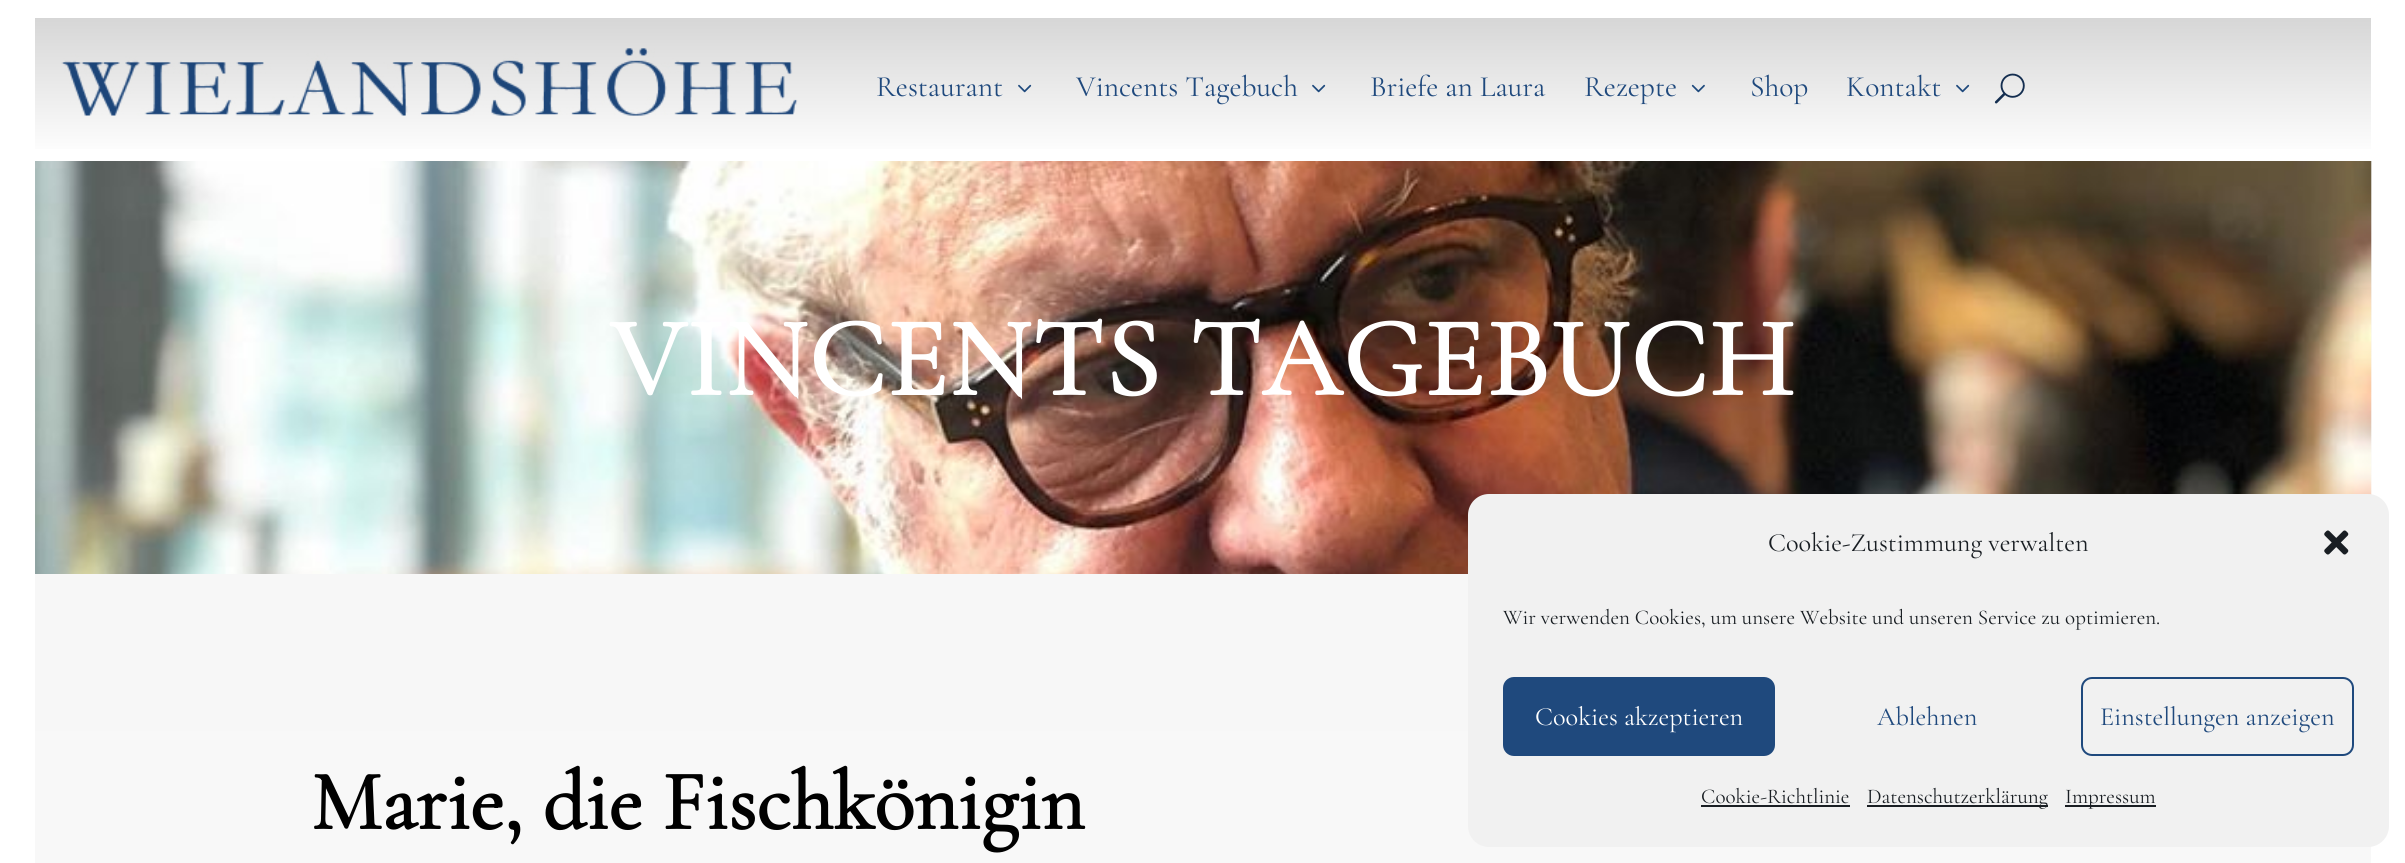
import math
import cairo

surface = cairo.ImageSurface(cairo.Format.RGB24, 2405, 863)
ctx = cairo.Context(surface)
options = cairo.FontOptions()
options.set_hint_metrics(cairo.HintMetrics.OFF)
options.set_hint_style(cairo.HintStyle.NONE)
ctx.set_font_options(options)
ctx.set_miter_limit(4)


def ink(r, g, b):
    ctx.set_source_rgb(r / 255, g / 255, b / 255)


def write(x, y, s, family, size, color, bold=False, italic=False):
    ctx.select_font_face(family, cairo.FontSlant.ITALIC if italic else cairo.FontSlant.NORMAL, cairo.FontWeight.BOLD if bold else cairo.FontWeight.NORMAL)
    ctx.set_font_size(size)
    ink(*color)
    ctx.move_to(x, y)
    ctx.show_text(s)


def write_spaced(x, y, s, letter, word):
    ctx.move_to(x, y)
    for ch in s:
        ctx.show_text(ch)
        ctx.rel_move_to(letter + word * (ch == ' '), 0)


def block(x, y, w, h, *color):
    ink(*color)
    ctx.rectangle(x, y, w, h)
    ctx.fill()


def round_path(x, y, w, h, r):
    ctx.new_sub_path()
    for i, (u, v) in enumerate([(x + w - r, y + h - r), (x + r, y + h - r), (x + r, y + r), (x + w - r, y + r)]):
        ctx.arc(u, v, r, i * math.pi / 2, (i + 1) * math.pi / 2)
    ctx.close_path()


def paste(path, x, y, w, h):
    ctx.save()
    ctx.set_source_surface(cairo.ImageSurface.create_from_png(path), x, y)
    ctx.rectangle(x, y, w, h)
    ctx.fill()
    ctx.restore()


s1 = dict(family="Cormorant Garamond", size=29.5, color=(31, 73, 125))
s2 = dict(family="Cormorant Garamond", size=84, color=(0, 0, 0), bold=True)
s3 = dict(family="Cormorant Garamond", size=26.25, color=(25, 30, 35))
s4 = dict(family="Cormorant Garamond", size=21, color=(25, 30, 35))
s5 = dict(family="Cormorant Garamond", size=26.25, color=(255, 255, 255))
s6 = dict(family="Cormorant Garamond", size=26.25, color=(31, 73, 125))

ink(255, 255, 255)
ctx.paint()
gradient = cairo.LinearGradient(1203, 17, 1203, 158)
gradient.add_color_stop_rgba(0, 0.839, 0.839, 0.839, 1)
gradient.add_color_stop_rgba(1, 1, 1, 1, 1)
ctx.set_source(gradient)
ctx.rectangle(35, 18, 2336, 131)
ctx.fill()
paste("pic1.png", 61, 48, 737, 68)
write(876, 96, "Restaurant", **s1)
paste("pic2.png", 1018, 84, 14, 9)
write(1076, 96, "Vincents Tagebuch", **s1)
paste("pic2.png", 1312, 84, 14, 9)
write(1370, 96, "Briefe an Laura", **s1)
write(1584, 96, "Rezepte", **s1)
paste("pic3.png", 1691, 84, 14, 9)
write(1750, 96, "Shop", **s1)
write(1846, 96, "Kontakt", **s1)
paste("pic2.png", 1956, 84, 14, 9)
paste("pic4.png", 1994, 73, 31, 31)
paste("pic5.png", 35, 161, 2337, 413)
ctx.select_font_face("Cormorant Garamond", cairo.FontSlant.NORMAL, cairo.FontWeight.BOLD)
ctx.set_font_size(112)
ink(255, 255, 255)
write_spaced(610, 395, "VINCENTS TAGEBUCH", 1.75, 0)
gradient = cairo.LinearGradient(1203, 574, 1203, 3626)
gradient.add_color_stop_rgba(0, 0.969, 0.969, 0.969, 1)
gradient.add_color_stop_rgba(1, 1, 1, 1, 1)
ctx.set_source(gradient)
ctx.rectangle(35, 574, 2336, 289)
ctx.fill()
write(311, 829, "Marie, die Fischkönigin", **s2)
ink(241, 241, 241)
round_path(1468, 494, 921, 353, 21)
ctx.fill()
write(1768, 551, "Cookie-Zustimmung verwalten", **s3)
paste("pic6.png", 2324, 530, 25, 25)
write(1503, 624, "Wir verwenden Cookies, um unsere Website und unseren Service zu optimieren.", **s4)
ink(31, 73, 125)
round_path(1504, 678, 270, 77, 10)
ctx.fill_preserve()
ctx.stroke()
write(1535, 725, "Cookies akzeptieren", **s5)
write(1877, 725, "Ablehnen", **s6)
round_path(2082, 678, 271, 77, 10)
ctx.stroke()
write(2100, 725, "Einstellungen anzeigen", **s6)
write(1701, 803, "Cookie-Richtlinie", **s4)
block(1701, 805, 149, 2, 25, 30, 35)
block(1867, 805, 181, 2, 25, 30, 35)
write(1867, 803, "Datenschutzerklärung", **s4)
block(2065, 805, 91, 2, 25, 30, 35)
write(2065, 803, "Impressum", **s4)
surface.write_to_png("screenshot.png")
